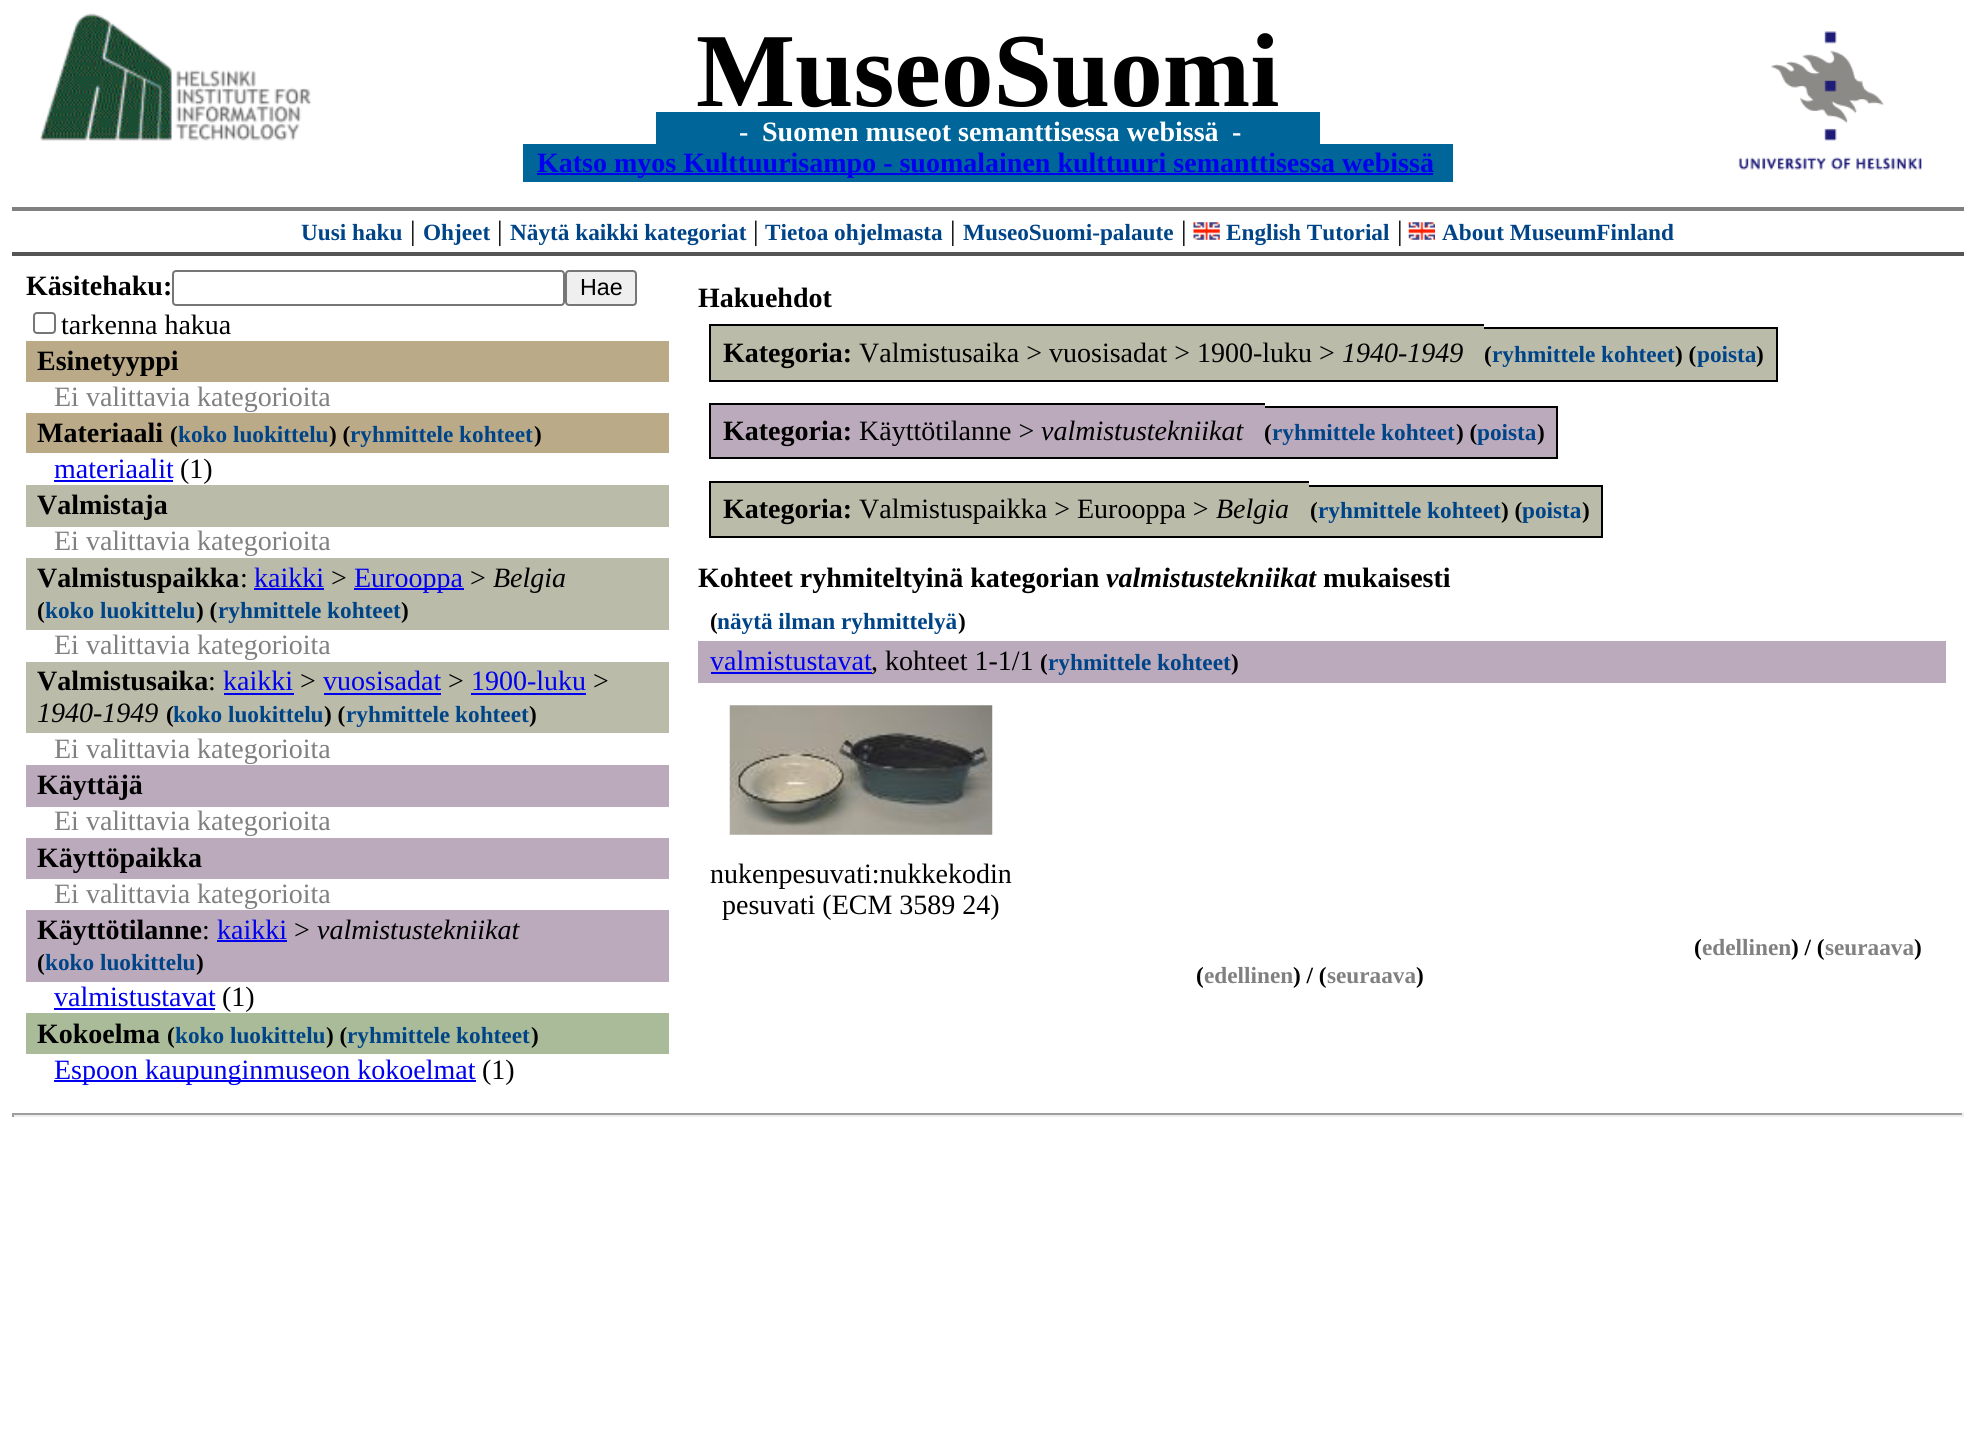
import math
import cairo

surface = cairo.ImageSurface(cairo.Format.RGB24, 1975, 1445)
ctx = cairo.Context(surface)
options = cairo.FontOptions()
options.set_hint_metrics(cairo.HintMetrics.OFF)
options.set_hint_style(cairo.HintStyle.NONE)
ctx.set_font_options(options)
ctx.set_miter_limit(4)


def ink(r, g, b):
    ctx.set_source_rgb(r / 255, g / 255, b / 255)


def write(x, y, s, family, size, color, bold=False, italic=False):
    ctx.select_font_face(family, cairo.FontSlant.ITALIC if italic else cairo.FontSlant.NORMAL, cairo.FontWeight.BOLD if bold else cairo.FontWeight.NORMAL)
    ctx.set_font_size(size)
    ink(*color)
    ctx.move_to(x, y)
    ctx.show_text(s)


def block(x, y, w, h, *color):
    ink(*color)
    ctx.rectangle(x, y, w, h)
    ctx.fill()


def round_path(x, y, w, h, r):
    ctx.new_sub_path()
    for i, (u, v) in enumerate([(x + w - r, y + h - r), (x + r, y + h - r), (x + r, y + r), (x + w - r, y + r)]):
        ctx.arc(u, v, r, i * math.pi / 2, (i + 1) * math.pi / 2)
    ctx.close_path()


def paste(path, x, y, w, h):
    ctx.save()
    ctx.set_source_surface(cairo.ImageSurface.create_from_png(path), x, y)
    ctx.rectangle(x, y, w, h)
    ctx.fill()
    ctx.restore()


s1 = dict(family="Liberation Serif", size=105, color=(0, 0, 0), bold=True)
s2 = dict(family="Liberation Serif", size=28, color=(255, 255, 255), bold=True)
s3 = dict(family="Liberation Serif", size=28, color=(0, 0, 238), bold=True)
s4 = dict(family="Liberation Serif", size=23.25, color=(0, 68, 136), bold=True)
s5 = dict(family="Liberation Serif", size=28, color=(0, 0, 0))
s6 = dict(family="Liberation Serif", size=28, color=(0, 0, 0), bold=True)
s7 = dict(family="Liberation Sans", size=23.25, color=(0, 0, 0))
s8 = dict(family="Liberation Serif", size=28, color=(128, 128, 128))
s9 = dict(family="Liberation Serif", size=23.25, color=(0, 0, 0), bold=True)
s10 = dict(family="Liberation Serif", size=28, color=(0, 0, 238))
s11 = dict(family="Liberation Serif", size=28, color=(0, 0, 0), italic=True)
s12 = dict(family="Liberation Serif", size=28, color=(0, 0, 0), bold=True, italic=True)
s13 = dict(family="Liberation Serif", size=23.25, color=(128, 128, 128), bold=True)

ink(255, 255, 255)
ctx.paint()
paste("pic1.png", 40, 13, 272, 128)
write(696, 106, "MuseoSuomi", **s1)
paste("pic2.png", 1738, 31, 184, 139)
block(656, 112, 664, 32, 0, 102, 153)
write(739, 141, "-", **s2)
write(762, 141, "Suomen museot semanttisessa webissä", **s2)
write(1232, 141, "-", **s2)
block(523, 144, 930, 38, 0, 102, 153)
block(537, 173, 896, 2, 0, 0, 238)
write(537, 172, "Katso myos Kulttuurisampo - suomalainen kulttuuri semanttisessa webissä", **s3)
block(12, 207, 1952, 4, 128, 128, 128)
block(12, 252, 1952, 4, 85, 85, 85)
write(301, 240, "Uusi haku", **s4)
write(410, 240, "|", **s5)
write(423, 240, "Ohjeet", **s4)
write(497, 240, "|", **s5)
write(510, 240, "Näytä kaikki kategoriat", **s4)
write(753, 240, "|", **s5)
write(765, 240, "Tietoa ohjelmasta", **s4)
write(950, 240, "|", **s5)
write(963, 240, "MuseoSuomi-palaute", **s4)
write(1181, 240, "|", **s5)
paste("pic3.png", 1193, 222, 27, 18)
write(1226, 240, "English Tutorial", **s4)
write(1397, 240, "|", **s5)
paste("pic4.png", 1408, 222, 27, 18)
write(1442, 240, "About MuseumFinland", **s4)
write(26, 295, "Käsitehaku:", **s6)
round_path(173, 271, 391, 34, 3)
ink(118, 118, 118)
ctx.stroke()
ink(239, 239, 239)
round_path(566, 271, 70, 34, 3)
ctx.fill_preserve()
ink(118, 118, 118)
ctx.stroke()
write(580, 295, "Hae", **s7)
round_path(34, 313, 21, 20, 3)
ink(118, 118, 118)
ctx.stroke()
write(61, 334, "tarkenna hakua", **s5)
block(26, 341, 643, 41, 187, 170, 136)
write(37, 370, "Esinetyyppi", **s6)
write(54, 406, "Ei valittavia kategorioita", **s8)
block(26, 413, 643, 40, 187, 170, 136)
write(37, 442, "Materiaali", **s6)
write(170, 442, "(", **s9)
write(178, 442, "koko luokittelu", **s4)
write(329, 442, ") (", **s9)
write(350, 442, "ryhmittele kohteet", **s4)
write(534, 442, ")", **s9)
write(54, 478, "materiaalit", **s10)
block(54, 480, 119, 2, 0, 0, 238)
write(180, 478, "(1)", **s5)
block(26, 485, 643, 42, 187, 187, 170)
write(37, 514, "Valmistaja", **s6)
write(54, 550, "Ei valittavia kategorioita", **s8)
block(26, 558, 643, 72, 187, 187, 170)
write(37, 587, "Valmistuspaikka", **s6)
write(240, 587, ":", **s5)
write(254, 587, "kaikki", **s10)
block(254, 588, 70, 2, 0, 0, 238)
write(331, 587, ">", **s5)
block(354, 588, 110, 2, 0, 0, 238)
write(354, 587, "Eurooppa", **s10)
write(470, 587, ">", **s5)
write(493, 587, "Belgia", **s11)
write(37, 618, "(", **s9)
write(45, 618, "koko luokittelu", **s4)
write(196, 618, ") (", **s9)
write(218, 618, "ryhmittele kohteet", **s4)
write(401, 618, ")", **s9)
write(54, 654, "Ei valittavia kategorioita", **s8)
block(26, 662, 643, 71, 187, 187, 170)
write(37, 690, "Valmistusaika", **s6)
write(208, 690, ":", **s5)
write(223, 690, "kaikki", **s10)
block(224, 693, 70, 2, 0, 0, 238)
write(300, 690, ">", **s5)
write(323, 690, "vuosisadat", **s10)
block(324, 693, 117, 2, 0, 0, 238)
write(448, 690, ">", **s5)
write(471, 690, "1900-luku", **s10)
block(471, 693, 115, 2, 0, 0, 238)
write(593, 690, ">", **s5)
write(37, 722, "1940-1949", **s11)
write(166, 722, "(", **s9)
write(173, 722, "koko luokittelu", **s4)
write(324, 722, ") (", **s9)
write(346, 722, "ryhmittele kohteet", **s4)
write(529, 722, ")", **s9)
write(54, 758, "Ei valittavia kategorioita", **s8)
block(26, 765, 643, 42, 187, 170, 187)
write(37, 794, "Käyttäjä", **s6)
write(54, 830, "Ei valittavia kategorioita", **s8)
block(26, 838, 643, 41, 187, 170, 187)
write(37, 867, "Käyttöpaikka", **s6)
write(54, 903, "Ei valittavia kategorioita", **s8)
block(26, 910, 643, 72, 187, 170, 187)
write(37, 939, "Käyttötilanne", **s6)
write(202, 939, ":", **s5)
write(217, 939, "kaikki", **s10)
block(217, 940, 70, 2, 0, 0, 238)
write(294, 939, ">", **s5)
write(317, 939, "valmistustekniikat", **s11)
write(37, 970, "(", **s9)
write(45, 970, "koko luokittelu", **s4)
write(196, 970, ")", **s9)
write(54, 1006, "valmistustavat", **s10)
block(54, 1008, 161, 2, 0, 0, 238)
write(222, 1006, "(1)", **s5)
block(26, 1013, 643, 41, 170, 187, 153)
write(37, 1043, "Kokoelma", **s6)
write(167, 1043, "(", **s9)
write(175, 1043, "koko luokittelu", **s4)
write(326, 1043, ") (", **s9)
write(347, 1043, "ryhmittele kohteet", **s4)
write(531, 1043, ")", **s9)
block(54, 1080, 422, 2, 0, 0, 238)
write(54, 1079, "Espoon kaupunginmuseon kokoelmat", **s10)
write(482, 1079, "(1)", **s5)
write(698, 307, "Hakuehdot", **s6)
block(711, 326, 773, 54, 187, 187, 170)
write(723, 362, "Kategoria:", **s6)
block(709, 324, 775, 2, 0, 0, 0)
block(709, 380, 1048, 2, 0, 0, 0)
block(709, 324, 2, 58, 0, 0, 0)
write(859, 362, "Valmistusaika > vuosisadat > 1900-luku >", **s5)
write(1342, 362, "1940-1949", **s11)
block(1484, 329, 292, 51, 187, 187, 170)
write(1484, 362, "(", **s9)
block(1484, 327, 294, 2, 0, 0, 0)
write(1492, 362, "ryhmittele kohteet", **s4)
write(1675, 362, ") (", **s9)
write(1697, 362, "poista", **s4)
block(1776, 327, 2, 55, 0, 0, 0)
block(1757, 380, 21, 2, 0, 0, 0)
write(1756, 362, ")", **s9)
block(711, 405, 554, 52, 187, 170, 187)
write(723, 440, "Kategoria:", **s6)
block(709, 403, 556, 2, 0, 0, 0)
block(709, 457, 556, 2, 0, 0, 0)
block(709, 403, 2, 56, 0, 0, 0)
write(859, 440, "Käyttötilanne >", **s5)
write(1041, 440, "valmistustekniikat", **s11)
block(1265, 406, 7, 53, 187, 170, 187)
write(1264, 440, "(", **s9)
block(1265, 406, 205, 2, 0, 0, 0)
block(1272, 408, 198, 49, 187, 170, 187)
write(1272, 440, "ryhmittele kohteet", **s4)
block(1265, 457, 205, 2, 0, 0, 0)
block(1470, 406, 7, 53, 187, 170, 187)
write(1456, 440, ") (", **s9)
block(1470, 406, 88, 2, 0, 0, 0)
block(1470, 457, 67, 2, 0, 0, 0)
block(1477, 408, 79, 49, 187, 170, 187)
write(1477, 440, "poista", **s4)
block(1556, 406, 2, 53, 0, 0, 0)
block(1537, 457, 21, 2, 0, 0, 0)
write(1537, 440, ")", **s9)
block(711, 483, 598, 53, 187, 187, 170)
write(723, 518, "Kategoria:", **s6)
block(709, 481, 600, 2, 0, 0, 0)
block(709, 536, 873, 2, 0, 0, 0)
block(709, 481, 2, 56, 0, 0, 0)
write(859, 518, "Valmistuspaikka > Eurooppa >", **s5)
write(1216, 518, "Belgia", **s11)
block(1309, 487, 292, 49, 187, 187, 170)
write(1310, 518, "(", **s9)
block(1309, 485, 294, 2, 0, 0, 0)
write(1318, 518, "ryhmittele kohteet", **s4)
write(1501, 518, ") (", **s9)
write(1522, 518, "poista", **s4)
block(1601, 485, 2, 52, 0, 0, 0)
block(1582, 536, 21, 2, 0, 0, 0)
write(1582, 518, ")", **s9)
write(698, 587, "Kohteet ryhmiteltyinä kategorian", **s6)
write(1106, 587, "valmistustekniikat", **s12)
write(1323, 587, "mukaisesti", **s6)
write(710, 629, "(", **s9)
write(717, 629, "näytä ilman ryhmittelyä", **s4)
write(958, 629, ")", **s9)
block(698, 641, 1248, 42, 187, 170, 187)
write(710, 670, "valmistustavat", **s10)
block(711, 672, 161, 2, 0, 0, 238)
write(871, 670, ", kohteet 1-1/1", **s5)
write(1040, 670, "(", **s9)
write(1048, 670, "ryhmittele kohteet", **s4)
write(1231, 670, ")", **s9)
paste("pic5.png", 729, 705, 264, 130)
write(710, 883, "nukenpesuvati:nukkekodin", **s5)
write(722, 914, "pesuvati (ECM 3589 24)", **s5)
write(1694, 955, "(", **s9)
write(1702, 955, "edellinen", **s13)
write(1791, 955, ") / (", **s9)
write(1825, 955, "seuraava", **s13)
write(1914, 955, ")", **s9)
write(1196, 983, "(", **s9)
write(1204, 983, "edellinen", **s13)
write(1293, 983, ") / (", **s9)
write(1327, 983, "seuraava", **s13)
write(1416, 983, ")", **s9)
block(12, 1113, 1952, 2, 159, 159, 159)
block(1962, 1113, 2, 4, 238, 238, 238)
block(12, 1115, 1952, 2, 238, 238, 238)
block(12, 1113, 2, 4, 159, 159, 159)
surface.write_to_png("screenshot.png")
